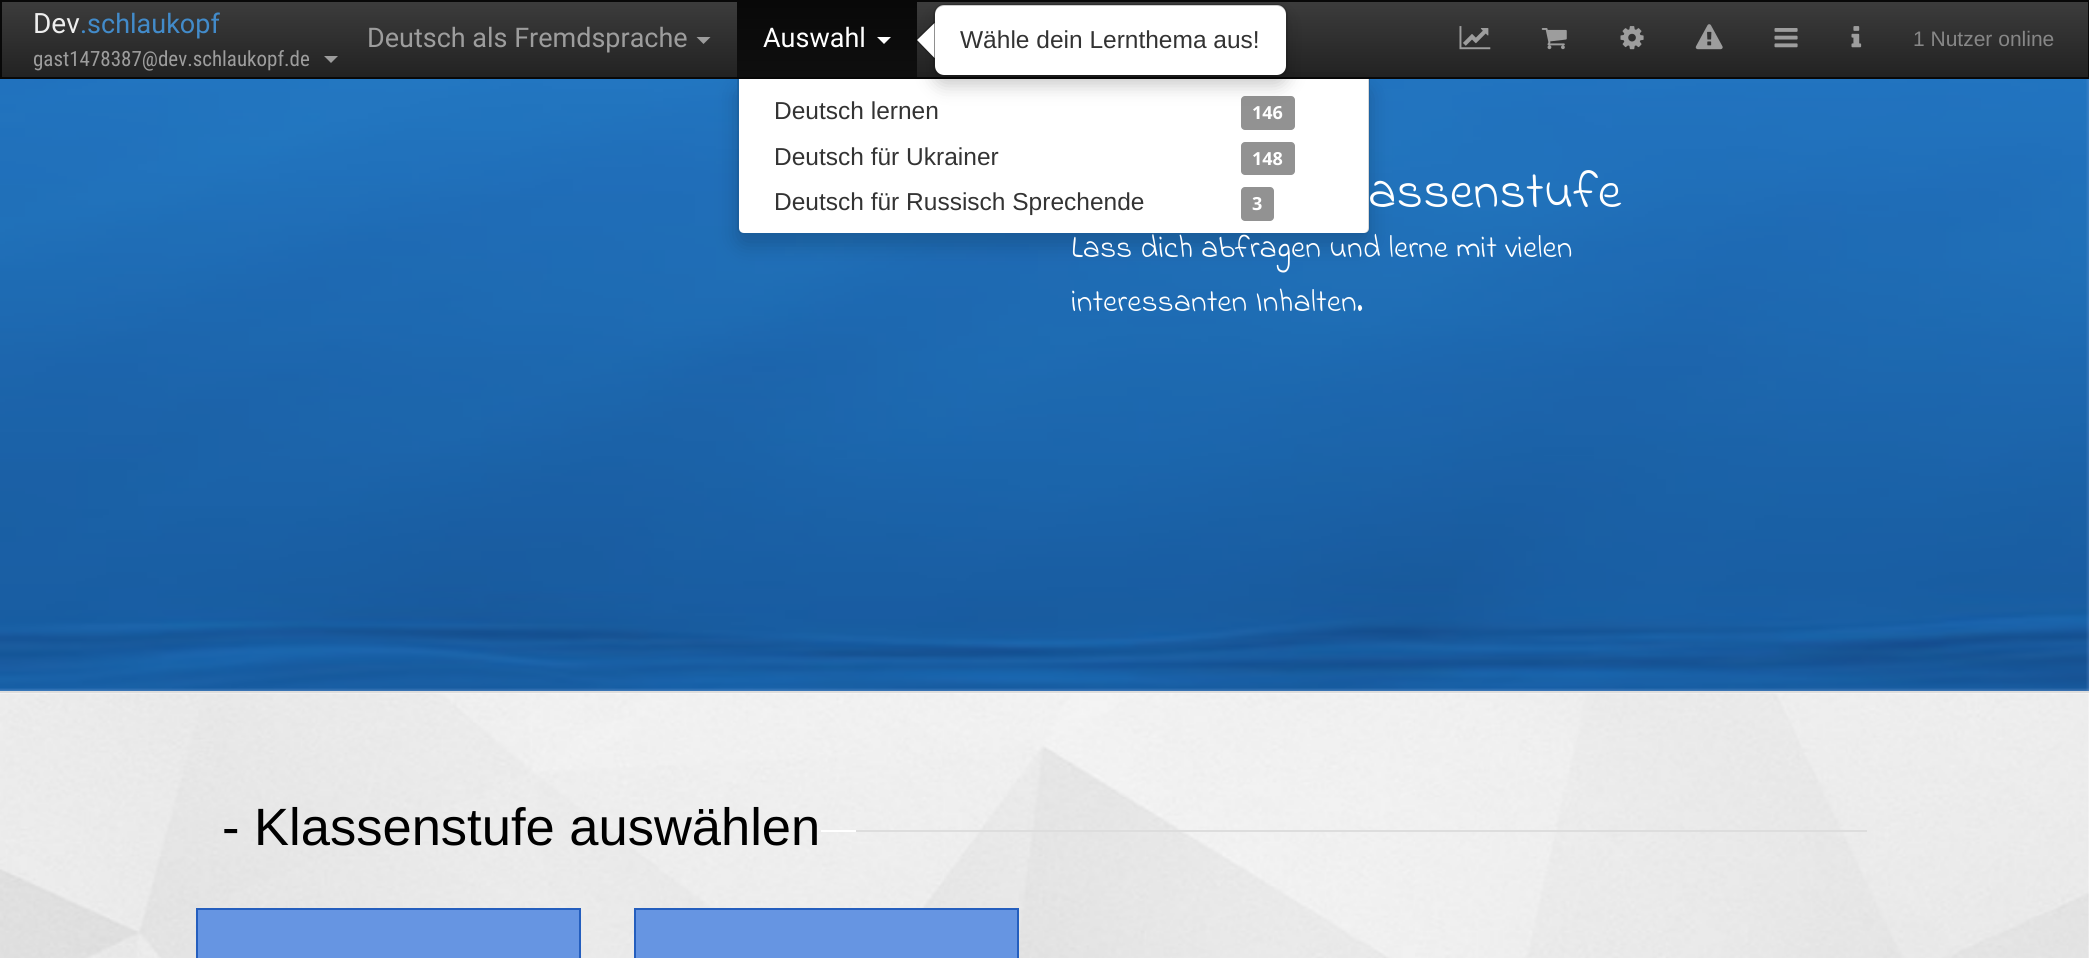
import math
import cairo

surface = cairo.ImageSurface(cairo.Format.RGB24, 2089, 958)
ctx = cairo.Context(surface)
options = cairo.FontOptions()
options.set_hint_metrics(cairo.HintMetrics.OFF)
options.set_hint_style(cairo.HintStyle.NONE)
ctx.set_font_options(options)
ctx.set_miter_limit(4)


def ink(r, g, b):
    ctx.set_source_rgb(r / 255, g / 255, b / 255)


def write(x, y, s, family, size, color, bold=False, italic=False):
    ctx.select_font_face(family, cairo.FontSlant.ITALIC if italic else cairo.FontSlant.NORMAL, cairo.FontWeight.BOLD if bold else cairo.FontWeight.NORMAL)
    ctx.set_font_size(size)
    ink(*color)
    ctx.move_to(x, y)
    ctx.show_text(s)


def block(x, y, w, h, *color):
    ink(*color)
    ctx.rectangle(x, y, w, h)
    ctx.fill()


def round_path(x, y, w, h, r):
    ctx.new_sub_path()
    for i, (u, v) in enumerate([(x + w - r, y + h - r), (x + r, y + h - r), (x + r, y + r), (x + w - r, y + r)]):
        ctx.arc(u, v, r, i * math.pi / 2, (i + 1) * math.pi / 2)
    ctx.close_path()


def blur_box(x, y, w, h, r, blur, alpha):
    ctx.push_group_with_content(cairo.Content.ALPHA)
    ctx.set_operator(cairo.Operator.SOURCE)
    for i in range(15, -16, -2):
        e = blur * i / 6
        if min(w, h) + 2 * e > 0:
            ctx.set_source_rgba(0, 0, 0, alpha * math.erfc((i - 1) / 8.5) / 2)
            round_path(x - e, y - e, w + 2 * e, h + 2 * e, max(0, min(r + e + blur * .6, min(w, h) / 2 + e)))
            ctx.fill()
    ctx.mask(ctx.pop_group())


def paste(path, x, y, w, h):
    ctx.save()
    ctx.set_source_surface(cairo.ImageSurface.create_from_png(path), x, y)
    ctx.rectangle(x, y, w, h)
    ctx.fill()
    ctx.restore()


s1 = dict(family="Roboto", size=28, color=(238, 238, 238))
s2 = dict(family="Roboto", size=27, color=(66, 139, 202))
s3 = dict(family="Roboto Condensed", size=21, color=(157, 157, 157))
s4 = dict(family="Roboto", size=27, color=(157, 157, 157))
s5 = dict(family="Roboto", size=27, color=(255, 255, 255))
s6 = dict(family="Indie Flower", size=31.8, color=(255, 255, 255))
s7 = dict(family="Liberation Sans", size=24.5, color=(51, 51, 51))
s8 = dict(family="Open Sans", size=18, color=(255, 255, 255), bold=True)
s9 = dict(family="Liberation Sans", size=21, color=(135, 135, 135))
s10 = dict(family="Indie Flower", size=52.5, color=(255, 255, 255))
s11 = dict(family="Liberation Sans", size=52.5, color=(0, 0, 0))

ink(255, 255, 255)
ctx.paint()
gradient = cairo.LinearGradient(1045, 1.7, 1045, 77)
gradient.add_color_stop_rgba(0, 0.235, 0.235, 0.235, 1)
gradient.add_color_stop_rgba(1, 0.133, 0.133, 0.133, 1)
ctx.set_source(gradient)
ctx.rectangle(2, 2, 2086, 75)
ctx.fill()
ctx.rectangle(1, 1, 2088, 77)
ink(8, 8, 8)
ctx.stroke()
write(33, 33, "Dev", **s1)
write(80, 33, ".schlaukopf", **s2)
write(33, 66, "gast1478387@dev.schlaukopf.de", **s3)
ctx.new_path()
ctx.move_to(324, 56)
ctx.line_to(338, 56)
ctx.line_to(331, 63)
ctx.close_path()
ctx.fill()
write(367, 47, "Deutsch als Fremdsprache", **s4)
ctx.new_path()
ctx.move_to(696.5, 37)
ctx.line_to(710.5, 37)
ctx.line_to(703.5, 44)
ctx.close_path()
ctx.fill()
gradient = cairo.LinearGradient(827, 1.7, 827, 77)
gradient.add_color_stop_rgba(0, 0.031, 0.031, 0.031, 1)
gradient.add_color_stop_rgba(1, 0.059, 0.059, 0.059, 1)
ctx.set_source(gradient)
ctx.rectangle(737, 2, 180, 75)
ctx.fill()
write(763, 47, "Auswahl", **s5)
ctx.new_path()
ctx.move_to(877, 37)
ctx.line_to(891, 37)
ctx.line_to(884, 44)
ctx.close_path()
ctx.fill()
paste("pic7.png", 0, 79, 2089, 612)
ctx.set_source_rgba(0.149, 0.388, 0.78, 0.5)
ctx.rectangle(0, 79, 2089, 612)
ctx.fill()
ctx.save()
ctx.set_fill_rule(cairo.FillRule.EVEN_ODD)
ctx.new_path()
ctx.move_to(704, 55)
ctx.line_to(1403, 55)
ctx.line_to(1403, 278)
ctx.line_to(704, 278)
ctx.close_path()
ctx.move_to(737, 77)
ctx.line_to(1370, 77)
ctx.line_to(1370, 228)
ctx.curve_to(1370, 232, 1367, 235, 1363, 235)
ctx.line_to(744, 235)
ctx.curve_to(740, 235, 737, 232, 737, 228)
ctx.close_path()
ctx.clip()
ink(0, 0, 0)
blur_box(737, 88, 633, 157, 7, 10.5, 0.18)
ctx.restore()
ink(255, 255, 255)
ctx.new_path()
ctx.move_to(739, 79)
ctx.line_to(1369, 79)
ctx.line_to(1369, 228)
ctx.curve_to(1369, 231, 1367, 233, 1364, 233)
ctx.line_to(744, 233)
ctx.curve_to(741, 233, 739, 231, 739, 228)
ctx.close_path()
ctx.fill()
write(1071, 257, "Lass dich abfragen und lerne mit vielen", **s6)
ctx.new_path()
ctx.move_to(738, 78)
ctx.line_to(1369, 78)
ctx.line_to(1369, 228)
ctx.curve_to(1369, 231.5, 1366.5, 234, 1363, 234)
ctx.line_to(744, 234)
ctx.curve_to(740.5, 234, 738, 231.5, 738, 228)
ctx.close_path()
ctx.set_source_rgba(0, 0, 0, 0.15)
ctx.stroke()
write(774, 119, "Deutsch lernen", **s7)
ink(146, 146, 146)
round_path(1241, 96, 54, 34, 4)
ctx.fill()
write(1252, 119, "146", **s8)
write(774, 165, "Deutsch für Ukrainer", **s7)
ink(146, 146, 146)
round_path(1241, 142, 54, 33, 4)
ctx.fill()
write(1252, 165, "148", **s8)
write(774, 210, "Deutsch für Russisch Sprechende", **s7)
ink(146, 146, 146)
round_path(1241, 187, 33, 34, 4)
ctx.fill()
write(1252, 210, "3", **s8)
paste("pic1.png", 1459, 26, 32, 24)
paste("pic2.png", 1541, 28, 26, 22)
paste("pic3.png", 1620, 26, 24, 24)
paste("pic4.png", 1695, 24, 28, 26)
paste("pic5.png", 1774, 28, 24, 20)
paste("pic6.png", 1851, 26, 11, 22)
write(1913, 46, "1 Nutzer online", **s9)
ctx.save()
ctx.set_fill_rule(cairo.FillRule.EVEN_ODD)
ctx.new_path()
ctx.move_to(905, 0)
ctx.line_to(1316, 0)
ctx.line_to(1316, 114)
ctx.line_to(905, 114)
ctx.close_path()
ctx.move_to(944, 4)
ctx.line_to(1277, 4)
ctx.curve_to(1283, 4, 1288, 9, 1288, 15)
ctx.line_to(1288, 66)
ctx.curve_to(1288, 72, 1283, 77, 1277, 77)
ctx.line_to(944, 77)
ctx.curve_to(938, 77, 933, 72, 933, 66)
ctx.line_to(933, 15)
ctx.curve_to(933, 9, 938, 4, 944, 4)
ctx.close_path()
ctx.clip()
ink(0, 0, 0)
blur_box(933, 12, 355, 74, 11, 9, 0.2)
ctx.restore()
ink(255, 255, 255)
round_path(935, 5, 351, 70, 9)
ctx.fill()
round_path(934, 5, 353, 71, 10)
ctx.set_source_rgba(0, 0, 0, 0.2)
ctx.stroke()
ctx.set_source_rgba(0, 0, 0, 0.25)
ctx.new_path()
ctx.move_to(934.5, 21)
ctx.line_to(934.5, 59.5)
ctx.line_to(915, 40)
ctx.close_path()
ctx.fill()
ink(255, 255, 255)
ctx.new_path()
ctx.move_to(934.5, 23)
ctx.line_to(934.5, 58)
ctx.line_to(917, 40)
ctx.close_path()
ctx.fill()
write(960, 48, "Wähle dein Lernthema aus!", **s7)
write(1368, 207, "assenstufe", **s10)
write(1071, 311, "interessanten Inhalten.", **s6)
paste("pic8.png", 0, 693, 2089, 265)
block(0, 691, 2089, 2, 221, 221, 221)
write(222, 845, "- Klassenstufe auswählen", **s11)
block(856, 830, 1011, 2, 221, 221, 221)
block(821, 830, 35, 2, 255, 255, 255)
ink(102, 149, 226)
ctx.rectangle(197, 909, 383, 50)
ctx.fill_preserve()
ink(36, 94, 190)
ctx.stroke()
ink(102, 149, 226)
ctx.rectangle(635, 909, 383, 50)
ctx.fill_preserve()
ink(36, 94, 190)
ctx.stroke()
surface.write_to_png("screenshot.png")
